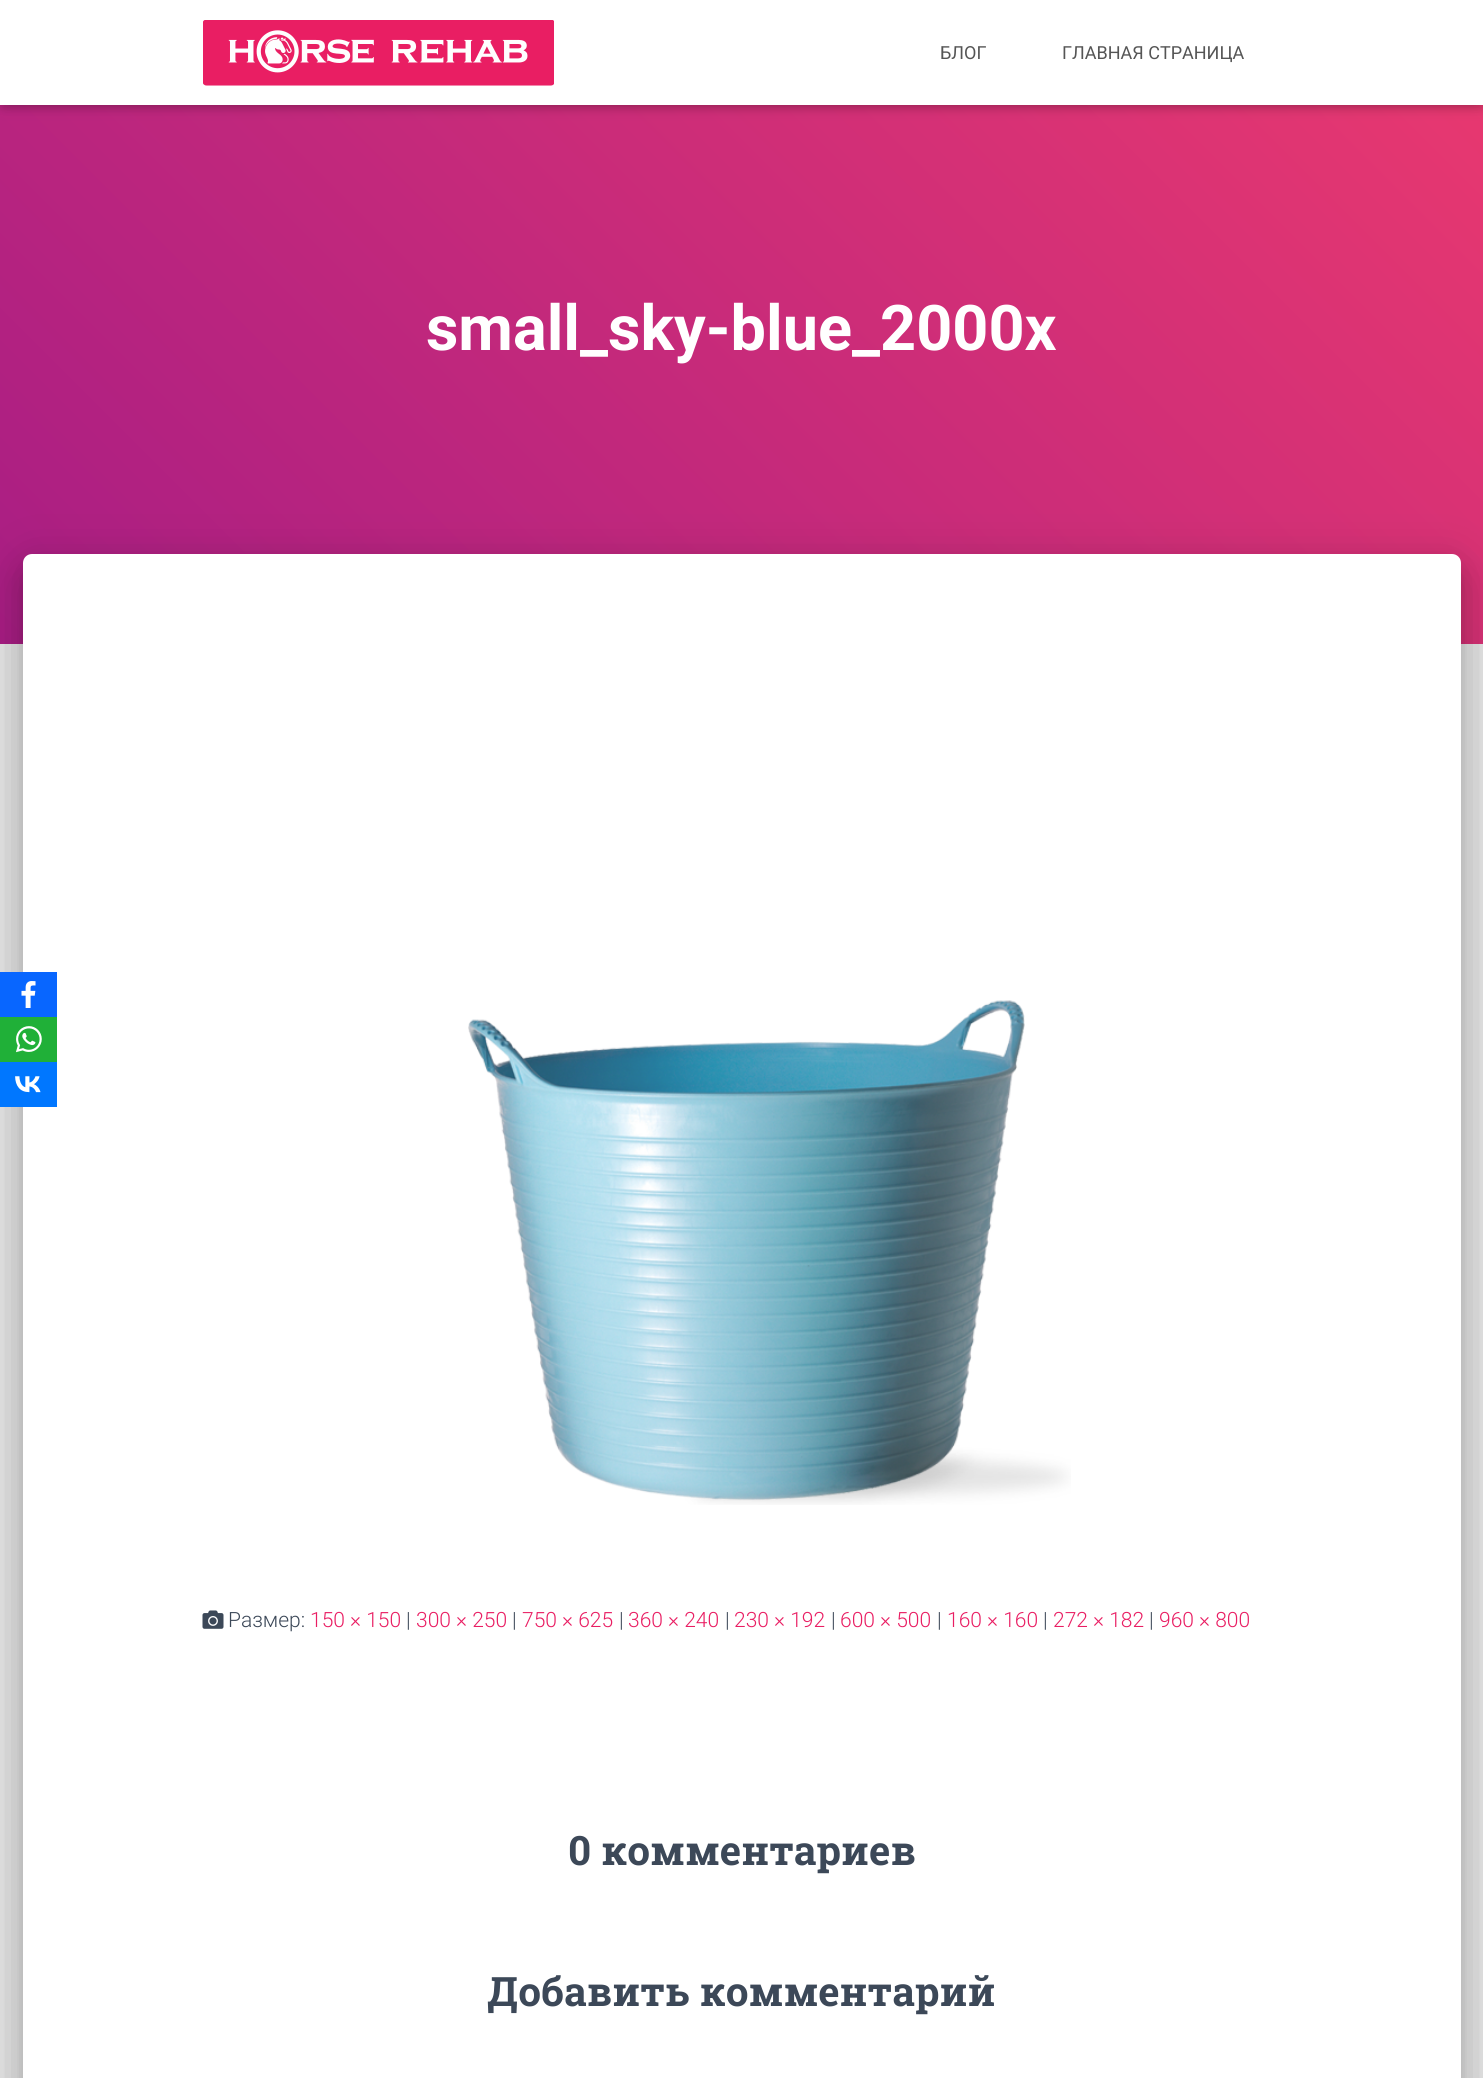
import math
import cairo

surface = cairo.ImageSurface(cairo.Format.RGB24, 1483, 2078)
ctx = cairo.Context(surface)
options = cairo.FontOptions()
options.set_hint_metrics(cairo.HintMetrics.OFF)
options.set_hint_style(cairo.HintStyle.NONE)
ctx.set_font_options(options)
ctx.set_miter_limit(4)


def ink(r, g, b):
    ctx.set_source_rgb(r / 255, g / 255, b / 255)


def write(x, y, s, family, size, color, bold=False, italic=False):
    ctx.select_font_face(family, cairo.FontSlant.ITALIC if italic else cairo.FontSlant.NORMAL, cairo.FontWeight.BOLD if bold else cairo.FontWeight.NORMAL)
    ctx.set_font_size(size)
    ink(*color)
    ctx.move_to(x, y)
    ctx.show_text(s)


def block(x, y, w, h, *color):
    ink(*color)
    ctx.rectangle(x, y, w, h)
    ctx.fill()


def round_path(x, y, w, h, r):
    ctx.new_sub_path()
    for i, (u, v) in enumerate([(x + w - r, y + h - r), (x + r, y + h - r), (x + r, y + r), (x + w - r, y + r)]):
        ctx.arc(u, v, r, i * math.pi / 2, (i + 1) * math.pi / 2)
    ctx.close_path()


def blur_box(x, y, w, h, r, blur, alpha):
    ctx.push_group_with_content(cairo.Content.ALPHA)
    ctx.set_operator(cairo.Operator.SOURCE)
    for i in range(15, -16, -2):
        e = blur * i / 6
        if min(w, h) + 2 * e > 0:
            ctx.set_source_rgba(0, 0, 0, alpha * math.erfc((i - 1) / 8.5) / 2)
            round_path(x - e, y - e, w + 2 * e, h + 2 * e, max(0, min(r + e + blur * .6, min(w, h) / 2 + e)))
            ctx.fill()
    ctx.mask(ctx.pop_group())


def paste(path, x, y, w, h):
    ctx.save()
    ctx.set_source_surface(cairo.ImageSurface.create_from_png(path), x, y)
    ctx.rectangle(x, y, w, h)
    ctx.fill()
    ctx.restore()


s1 = dict(family="Roboto", size=18, color=(85, 85, 85))
s2 = dict(family="Roboto", size=63, color=(255, 255, 255), bold=True)
s3 = dict(family="Roboto Light", size=21, color=(60, 72, 88))
s4 = dict(family="Roboto Light", size=21, color=(233, 30, 99))
s5 = dict(family="Roboto Slab", size=40.5, color=(60, 72, 88), bold=True)

ink(229, 229, 229)
ctx.paint()
gradient = cairo.LinearGradient(210, 854, 1274, -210)
gradient.add_color_stop_rgba(0, 0.659, 0.114, 0.518, 1)
gradient.add_color_stop_rgba(1, 0.918, 0.224, 0.435, 1)
ctx.set_source(gradient)
ctx.rectangle(0, 105, 1483, 539)
ctx.fill()
ink(0, 0, 0)
blur_box(30, 573, 1424, 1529, 1.5, 7.5, 0.2)
blur_box(15, 555, 1454, 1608, 17, 22.5, 0.12)
blur_box(20, 575, 1444, 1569, 12, 18, 0.14)
ink(255, 255, 255)
ctx.new_path()
ctx.move_to(32, 554)
ctx.line_to(1452, 554)
ctx.curve_to(1457, 554, 1461, 558, 1461, 563)
ctx.line_to(1461, 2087)
ctx.line_to(23, 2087)
ctx.line_to(23, 563)
ctx.curve_to(23, 558, 27, 554, 32, 554)
ctx.close_path()
ctx.fill()
block(0, 972, 57, 45, 8, 102, 255)
paste("pic1.png", 21, 981, 15, 27)
block(0, 1017, 57, 45, 32, 176, 56)
paste("pic2.png", 16, 1026, 26, 27)
block(0, 1062, 57, 45, 0, 119, 255)
paste("pic3.png", 15, 1076, 26, 17)
ink(0, 0, 0)
blur_box(3, 9, 1478, 99, 0, 4, 0.1)
blur_box(0, 2, 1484, 105, 0, 7.5, 0.12)
blur_box(9, 11, 1466, 87, 0, 7.5, 0.42)
block(0, 0, 1483, 105, 255, 255, 255)
paste("pic4.png", 203, 20, 351, 66)
write(940, 59, "БЛОГ", **s1)
write(1062, 59, "ГЛАВНАЯ СТРАНИЦА", **s1)
write(426, 350, "small_sky-blue_2000x", **s2)
paste("pic5.png", 468, 1000, 603, 505)
paste("pic6.png", 202, 1610, 22, 19)
write(228, 1627, "Размер:", **s3)
write(310, 1627, "150 × 150", **s4)
write(406, 1627, "|", **s3)
write(416, 1627, "300 × 250", **s4)
write(512, 1627, "|", **s3)
write(522, 1627, "750 × 625", **s4)
write(619, 1627, "|", **s3)
write(628, 1627, "360 × 240", **s4)
write(725, 1627, "|", **s3)
write(734, 1627, "230 × 192", **s4)
write(831, 1627, "|", **s3)
write(840, 1627, "600 × 500", **s4)
write(937, 1627, "|", **s3)
write(947, 1627, "160 × 160", **s4)
write(1043, 1627, "|", **s3)
write(1053, 1627, "272 × 182", **s4)
write(1149, 1627, "|", **s3)
write(1159, 1627, "960 × 800", **s4)
write(568, 1865, "0 комментариев", **s5)
write(487, 2006, "Добавить комментарий", **s5)
surface.write_to_png("screenshot.png")
